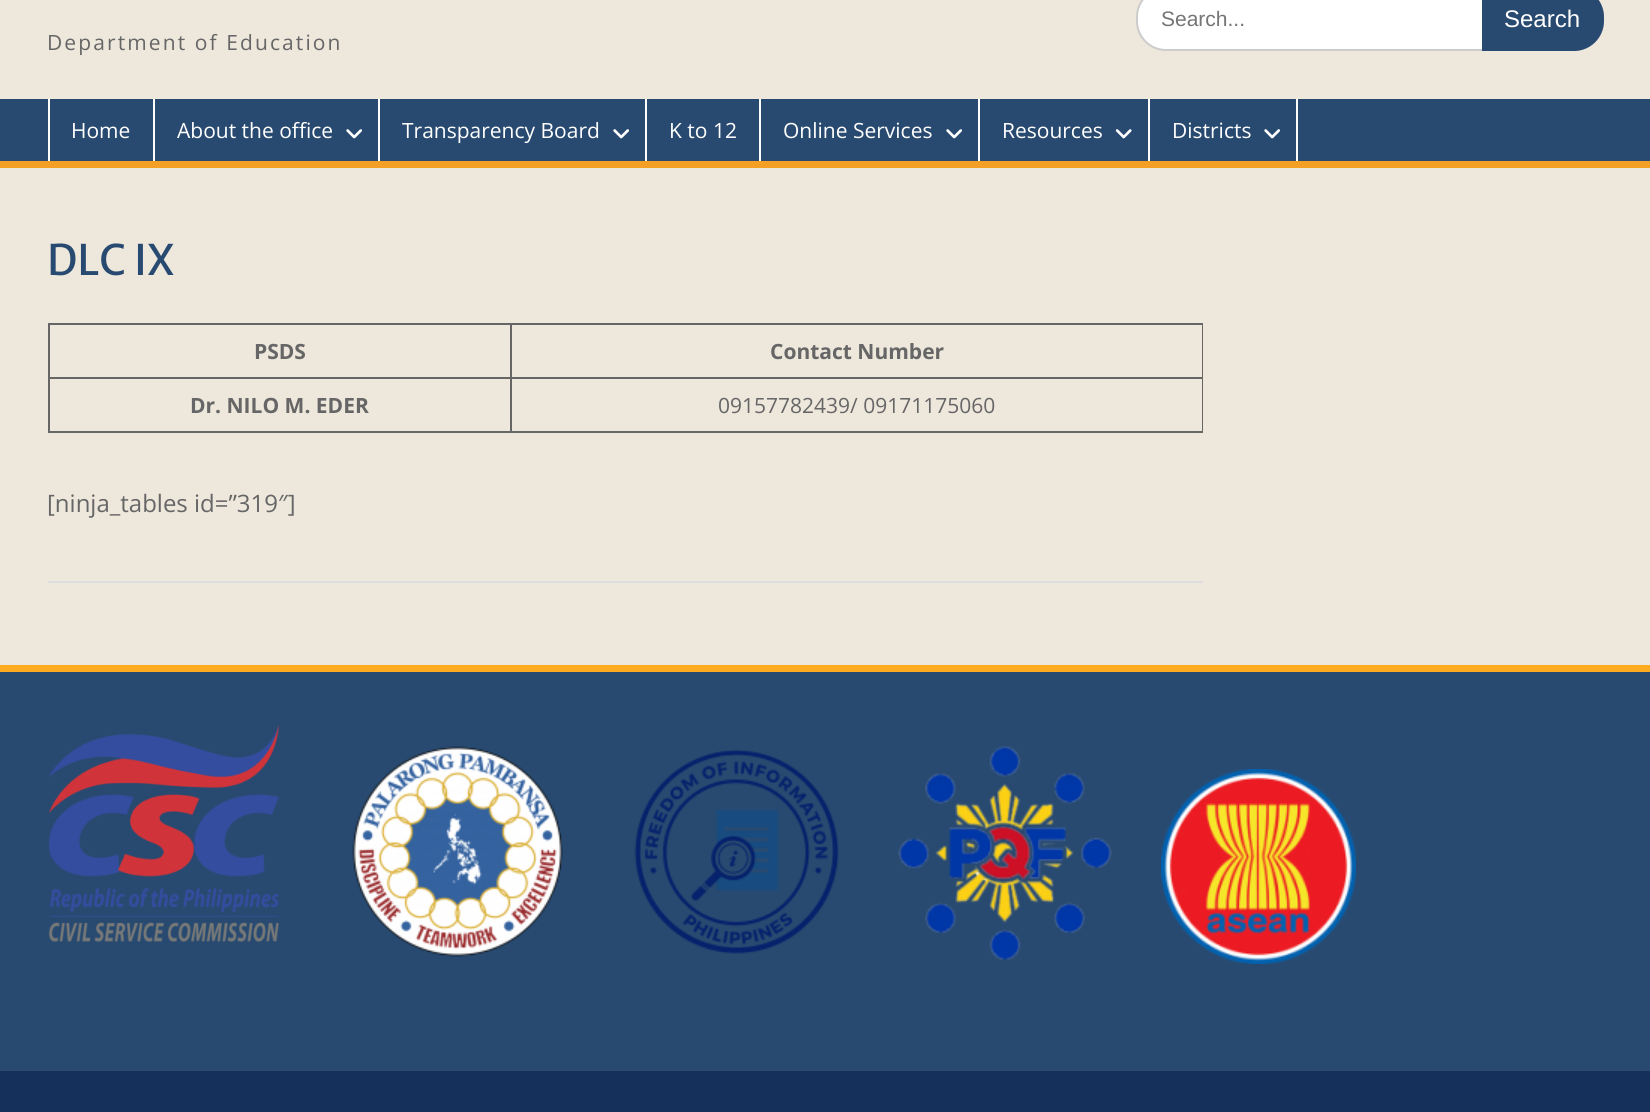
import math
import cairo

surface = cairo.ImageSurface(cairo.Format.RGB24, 1650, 1112)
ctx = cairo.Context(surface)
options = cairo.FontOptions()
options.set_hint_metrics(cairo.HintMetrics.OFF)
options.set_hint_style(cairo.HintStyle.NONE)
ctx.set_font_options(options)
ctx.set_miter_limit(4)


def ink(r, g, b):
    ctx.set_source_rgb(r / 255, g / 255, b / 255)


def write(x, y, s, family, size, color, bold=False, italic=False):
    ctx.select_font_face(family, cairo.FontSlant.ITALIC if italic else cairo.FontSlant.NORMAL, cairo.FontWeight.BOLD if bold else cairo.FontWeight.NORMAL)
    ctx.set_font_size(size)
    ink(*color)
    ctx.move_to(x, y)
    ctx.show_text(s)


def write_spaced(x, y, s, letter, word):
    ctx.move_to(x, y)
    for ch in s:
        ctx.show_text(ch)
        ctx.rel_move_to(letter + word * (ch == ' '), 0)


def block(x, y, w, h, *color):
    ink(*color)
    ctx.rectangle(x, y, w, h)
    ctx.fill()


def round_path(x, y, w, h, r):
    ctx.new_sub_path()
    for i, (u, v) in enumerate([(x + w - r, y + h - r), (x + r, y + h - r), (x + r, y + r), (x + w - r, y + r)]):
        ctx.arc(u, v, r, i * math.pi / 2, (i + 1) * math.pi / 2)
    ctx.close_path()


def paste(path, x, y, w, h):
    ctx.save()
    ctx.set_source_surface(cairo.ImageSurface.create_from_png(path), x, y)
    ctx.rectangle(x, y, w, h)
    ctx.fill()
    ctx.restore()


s1 = dict(family="Liberation Sans", size=21, color=(117, 117, 117))
s2 = dict(family="Liberation Sans", size=24, color=(255, 255, 255))
s3 = dict(family="Open Sans", size=21, color=(255, 255, 255))
s4 = dict(family="Merriweather Sans", size=42, color=(41, 74, 112))
s5 = dict(family="Open Sans", size=21, color=(102, 102, 102), bold=True)
s6 = dict(family="Open Sans", size=21, color=(102, 102, 102))
s7 = dict(family="Open Sans", size=24, color=(102, 102, 102))

ink(237, 231, 220)
ctx.paint()
ink(255, 255, 255)
round_path(1137, -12, 466, 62, 29)
ctx.fill_preserve()
ink(204, 204, 204)
ctx.stroke()
write(1161, 26, "Search...", **s1)
ink(41, 74, 112)
ctx.new_path()
ctx.move_to(1482, -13)
ctx.line_to(1574, -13)
ctx.curve_to(1590.5, -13, 1604, 0.5, 1604, 17)
ctx.line_to(1604, 21)
ctx.curve_to(1604, 37.5, 1590.5, 51, 1574, 51)
ctx.line_to(1482, 51)
ctx.close_path()
ctx.fill()
write(1504, 27, "Search", **s2)
ctx.select_font_face("Open Sans")
ctx.set_font_size(21)
ink(102, 102, 102)
write_spaced(47, 50, "Department of Education", 2.1, 0)
block(0, 99, 1650, 62, 41, 74, 112)
block(0, 161, 1650, 7, 244, 160, 36)
block(153, 99, 2, 62, 255, 255, 255)
block(48, 99, 2, 62, 255, 255, 255)
write(71, 138, "Home", **s3)
block(378, 99, 2, 62, 255, 255, 255)
write(177, 138, "About the office", **s3)
paste("pic1.png", 346, 129, 16, 10)
block(645, 99, 2, 62, 255, 255, 255)
write(402, 138, "Transparency Board", **s3)
paste("pic1.png", 613, 129, 16, 10)
block(759, 99, 2, 62, 255, 255, 255)
write(669, 138, "K to 12", **s3)
block(978, 99, 2, 62, 255, 255, 255)
write(783, 138, "Online Services", **s3)
paste("pic1.png", 946, 129, 16, 10)
block(1148, 99, 2, 62, 255, 255, 255)
write(1002, 138, "Resources", **s3)
paste("pic2.png", 1115, 129, 17, 10)
block(1296, 99, 2, 62, 255, 255, 255)
write(1172, 138, "Districts", **s3)
paste("pic1.png", 1264, 129, 16, 10)
block(48, 581, 1155, 2, 221, 221, 221)
write(47, 275, "DLC IX", **s4)
block(510, 323, 693, 2, 102, 102, 102)
block(510, 377, 693, 2, 102, 102, 102)
block(1202, 377, 1, 55, 102, 102, 102)
block(510, 431, 693, 2, 102, 102, 102)
block(510, 377, 2, 55, 102, 102, 102)
block(48, 377, 464, 2, 102, 102, 102)
block(510, 323, 2, 55, 102, 102, 102)
block(48, 323, 464, 2, 102, 102, 102)
block(48, 431, 464, 2, 102, 102, 102)
block(48, 377, 2, 55, 102, 102, 102)
block(48, 323, 2, 55, 102, 102, 102)
write(254, 359, "PSDS", **s5)
block(1202, 323, 1, 55, 102, 102, 102)
write(770, 359, "Contact Number", **s5)
write(190, 413, "Dr. NILO M. EDER", **s5)
write(718, 413, "09157782439/ 09171175060", **s6)
write(47, 512, "[ninja_tables id=”319″]", **s7)
block(0, 672, 1650, 399, 41, 74, 112)
block(0, 665, 1650, 7, 255, 171, 31)
paste("pic3.png", 48, 724, 231, 218)
paste("pic4.png", 352, 746, 211, 211)
paste("pic5.png", 634, 749, 205, 205)
paste("pic6.png", 898, 746, 214, 214)
paste("pic7.png", 1161, 769, 195, 195)
block(0, 1071, 1650, 41, 21, 48, 91)
surface.write_to_png("screenshot.png")
